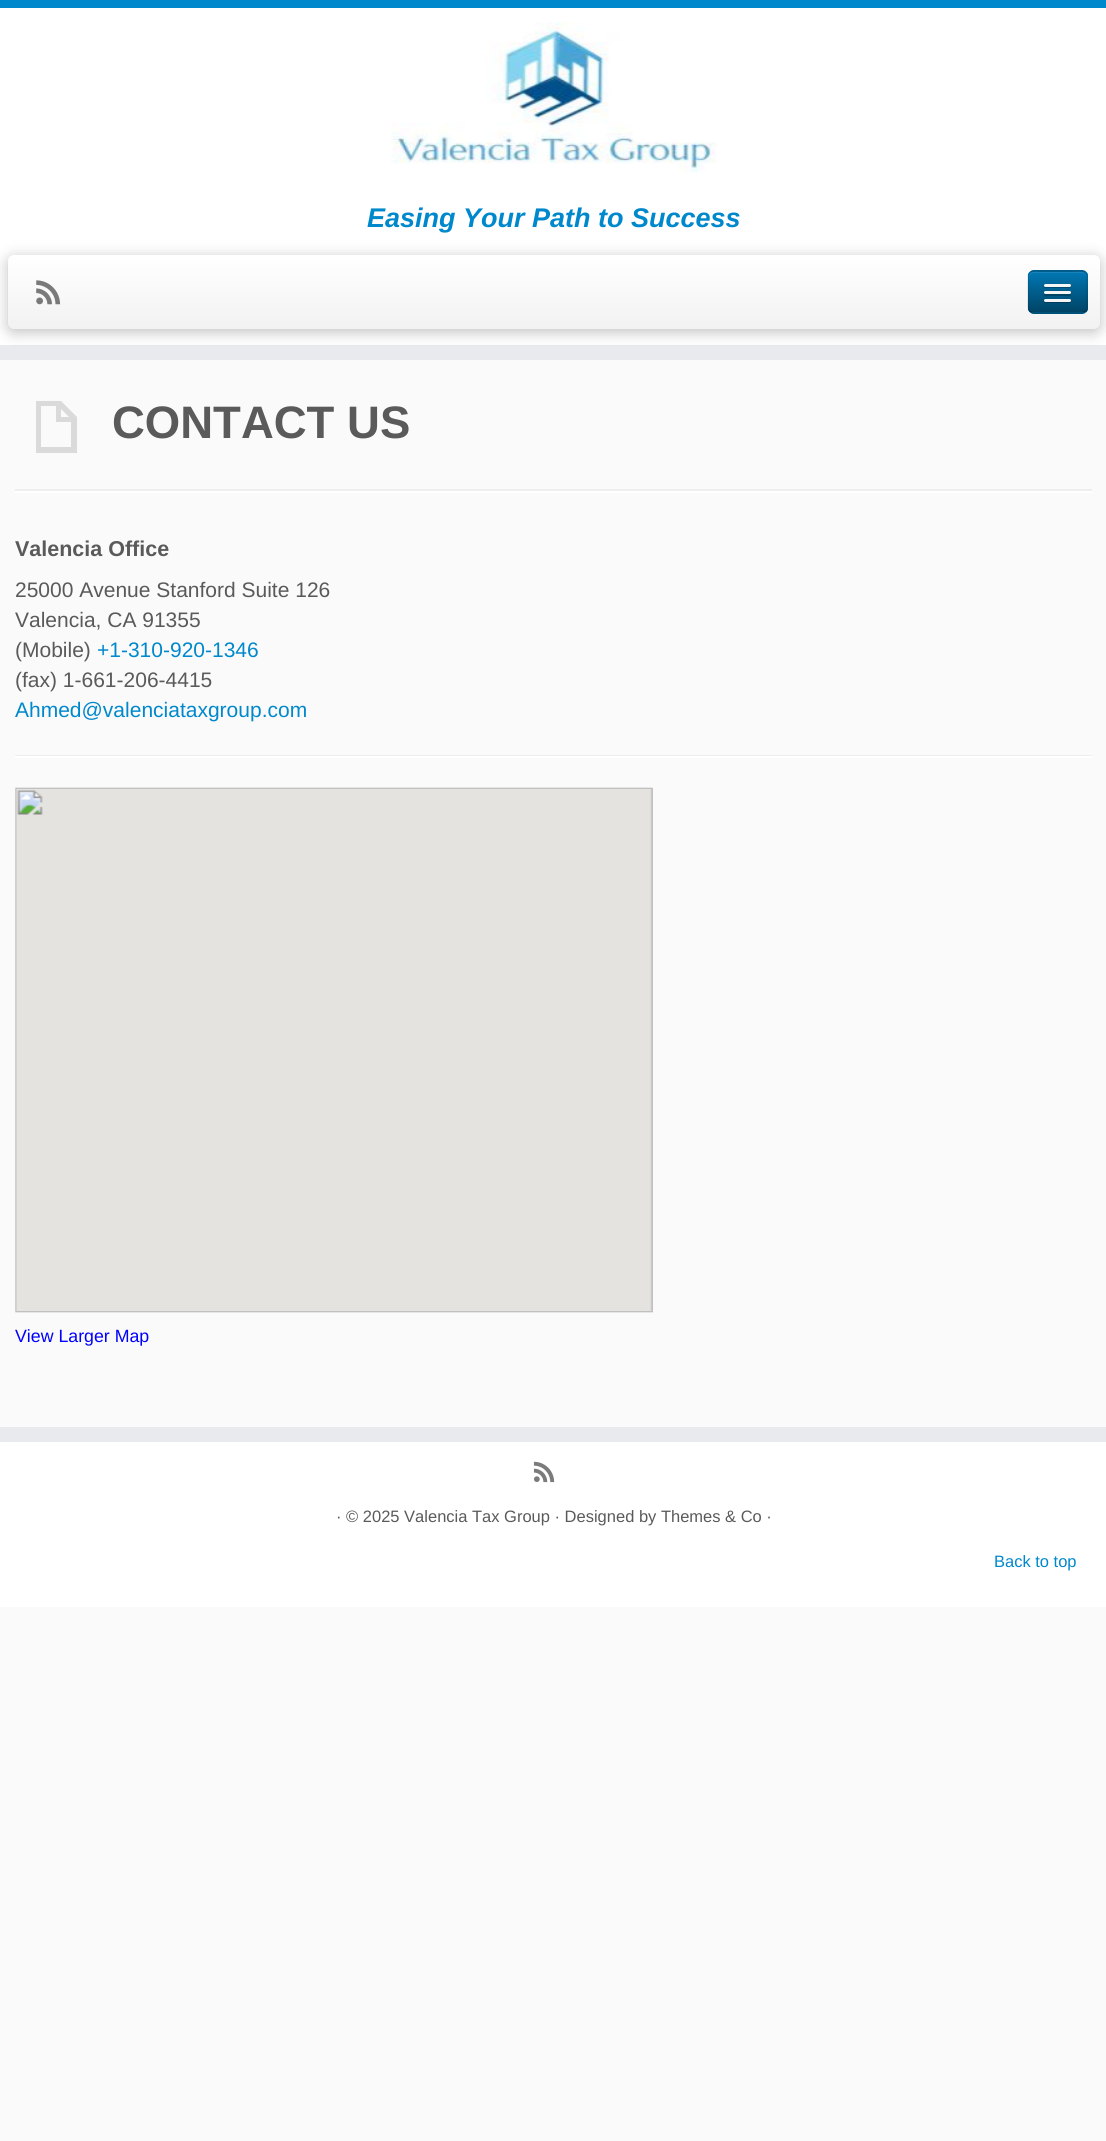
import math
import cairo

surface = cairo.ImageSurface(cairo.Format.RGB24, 1106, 2141)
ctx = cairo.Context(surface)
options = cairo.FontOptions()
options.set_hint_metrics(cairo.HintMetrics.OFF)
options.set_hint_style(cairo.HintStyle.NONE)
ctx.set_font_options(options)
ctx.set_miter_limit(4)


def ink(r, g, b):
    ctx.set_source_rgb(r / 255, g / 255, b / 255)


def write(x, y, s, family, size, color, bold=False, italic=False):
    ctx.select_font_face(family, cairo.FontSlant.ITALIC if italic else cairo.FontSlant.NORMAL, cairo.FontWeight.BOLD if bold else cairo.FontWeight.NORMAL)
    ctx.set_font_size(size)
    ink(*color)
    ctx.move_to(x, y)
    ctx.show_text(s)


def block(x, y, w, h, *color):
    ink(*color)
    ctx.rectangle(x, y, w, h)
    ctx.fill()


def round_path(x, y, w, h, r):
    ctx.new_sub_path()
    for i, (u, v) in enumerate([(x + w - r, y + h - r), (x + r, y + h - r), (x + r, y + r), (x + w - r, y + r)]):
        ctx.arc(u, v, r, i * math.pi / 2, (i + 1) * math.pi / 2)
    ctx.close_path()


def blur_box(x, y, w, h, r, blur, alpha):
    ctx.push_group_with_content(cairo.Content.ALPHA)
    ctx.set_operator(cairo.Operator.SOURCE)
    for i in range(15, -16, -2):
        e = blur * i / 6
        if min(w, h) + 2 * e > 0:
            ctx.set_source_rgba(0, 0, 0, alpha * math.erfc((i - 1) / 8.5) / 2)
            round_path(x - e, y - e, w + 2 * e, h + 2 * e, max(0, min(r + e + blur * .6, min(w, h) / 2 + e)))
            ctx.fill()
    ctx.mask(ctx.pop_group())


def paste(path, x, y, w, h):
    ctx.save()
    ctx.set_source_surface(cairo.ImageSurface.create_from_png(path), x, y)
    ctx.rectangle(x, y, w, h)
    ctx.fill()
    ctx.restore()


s1 = dict(family="Liberation Sans", size=27, color=(0, 136, 204), bold=True, italic=True)
s2 = dict(family="Liberation Sans", size=45.5, color=(90, 90, 90), bold=True)
s3 = dict(family="Liberation Sans", size=21.5, color=(90, 90, 90), bold=True)
s4 = dict(family="Liberation Sans", size=21, color=(90, 90, 90))
s5 = dict(family="Liberation Sans", size=21, color=(0, 136, 204))
s6 = dict(family="Liberation Sans", size=17.75, color=(0, 0, 255))
s7 = dict(family="Liberation Sans", size=16.5, color=(90, 90, 90))
s8 = dict(family="Liberation Sans", size=16.5, color=(0, 136, 204))

ink(250, 250, 250)
ctx.paint()
block(0, 8, 1106, 337, 255, 255, 255)
block(0, 0, 1106, 8, 0, 136, 204)
block(0, 345, 1106, 15, 233, 234, 238)
paste("pic1.png", 391, 22, 326, 151)
write(367, 227, "Easing Your Path to Success", **s1)
ink(0, 0, 0)
blur_box(8, 258, 1092, 74, 6, 7.5, 0.25)
gradient = cairo.LinearGradient(554, 255, 554, 329)
gradient.add_color_stop_rgba(0, 1, 1, 1, 1)
gradient.add_color_stop_rgba(1, 0.949, 0.949, 0.949, 1)
ctx.set_source(gradient)
round_path(8, 255, 1092, 74, 6)
ctx.fill()
paste("pic2.png", 36, 280, 25, 25)
ink(0, 99, 148)
round_path(1028, 270, 60, 44, 6)
ctx.fill()
ctx.save()
round_path(1028, 270, 60, 44, 6)
ctx.clip()
gradient = cairo.LinearGradient(1058, 272, 1058, 312)
gradient.add_color_stop_rgba(0, 0, 0.467, 0.702, 1)
gradient.add_color_stop_rgba(1, 0, 0.267, 0.4, 1)
ctx.set_source(gradient)
ctx.rectangle(1028, 272, 60, 40)
ctx.fill()
ctx.restore()
ink(26, 132, 186)
ctx.new_path()
ctx.move_to(1034, 273)
ctx.line_to(1082, 273)
ctx.curve_to(1084, 273, 1086, 275, 1086, 278)
ctx.curve_to(1086, 270, 1079, 272, 1073, 272)
ctx.line_to(1042, 272)
ctx.curve_to(1036, 272, 1029, 270, 1029, 278)
ctx.curve_to(1029, 275, 1031, 273, 1034, 273)
ctx.close_path()
ctx.fill()
ctx.new_path()
ctx.move_to(1085, 311)
ctx.curve_to(1084, 312, 1083, 313, 1081.5, 313)
ctx.line_to(1033.5, 313)
ctx.curve_to(1032, 313, 1031, 312, 1030, 311)
ctx.set_source_rgba(0, 0, 0, 0.25)
ctx.set_line_width(1.5)
ctx.stroke()
ctx.new_path()
ctx.move_to(1030, 311)
ctx.curve_to(1029, 310, 1028, 309, 1028, 307.5)
ctx.line_to(1028, 276)
ctx.curve_to(1028, 274.5, 1029, 273.5, 1030, 272.5)
ctx.curve_to(1031, 271.5, 1032, 271, 1033.5, 271)
ctx.line_to(1081.5, 271)
ctx.curve_to(1083, 271, 1084, 271.5, 1085, 272.5)
ctx.curve_to(1086, 273.5, 1087, 274.5, 1087, 276)
ctx.line_to(1087, 307.5)
ctx.curve_to(1087, 309, 1086, 310, 1085, 311)
ctx.set_source_rgba(0, 0, 0, 0.1)
ctx.stroke()
ink(0, 74, 112)
ctx.new_path()
ctx.move_to(1044, 286)
ctx.curve_to(1042.5, 289, 1049.5, 288, 1049.5, 288)
ctx.line_to(1065.5, 288)
ctx.curve_to(1065.5, 288, 1072.5, 289, 1071, 286)
ctx.curve_to(1070.5, 286, 1070, 286.5, 1069.5, 286.5)
ctx.line_to(1045.5, 286.5)
ctx.curve_to(1045, 286.5, 1044.5, 286, 1044, 286)
ctx.close_path()
ctx.fill()
ink(245, 245, 245)
round_path(1044, 284, 27, 3, 1.5)
ctx.fill()
ink(0, 67, 101)
ctx.new_path()
ctx.move_to(1044.5, 293.5)
ctx.line_to(1044, 295)
ctx.curve_to(1044.5, 297, 1049, 296, 1049.5, 296)
ctx.line_to(1065.5, 296)
ctx.curve_to(1066, 296, 1070.5, 297, 1071, 295)
ctx.line_to(1070.5, 293.5)
ctx.line_to(1069.5, 294)
ctx.line_to(1045.5, 294)
ctx.close_path()
ctx.fill()
ink(245, 245, 245)
round_path(1044, 291, 27, 3, 1.5)
ctx.fill()
ink(0, 60, 90)
ctx.new_path()
ctx.move_to(1044, 301)
ctx.curve_to(1042.5, 304, 1049.5, 303, 1049.5, 303)
ctx.line_to(1065.5, 303)
ctx.curve_to(1065.5, 303, 1072.5, 304, 1071, 301)
ctx.curve_to(1070.5, 301, 1070, 301.5, 1069.5, 301.5)
ctx.line_to(1045.5, 301.5)
ctx.curve_to(1045, 301.5, 1044.5, 301, 1044, 301)
ctx.close_path()
ctx.fill()
ink(245, 245, 245)
round_path(1044, 299, 27, 3, 1.5)
ctx.fill()
ink(218, 218, 218)
ctx.new_path()
ctx.move_to(36, 453)
ctx.line_to(36, 401)
ctx.line_to(61, 401)
ctx.line_to(77, 417)
ctx.line_to(77, 453)
ctx.close_path()
ctx.move_to(41, 447)
ctx.line_to(71, 447)
ctx.line_to(71, 422)
ctx.line_to(56, 422)
ctx.line_to(56, 406)
ctx.line_to(41, 406)
ctx.close_path()
ctx.move_to(61, 417)
ctx.line_to(69, 417)
ctx.line_to(61, 409)
ctx.close_path()
ctx.fill()
write(112, 438, "CONTACT US", **s2)
block(15, 489, 1077, 2, 238, 238, 238)
block(15, 491, 1077, 2, 255, 255, 255)
write(15, 556, "Valencia Office", **s3)
write(15, 597, "25000 Avenue Stanford Suite 126", **s4)
write(15, 627, "Valencia, CA 91355", **s4)
write(15, 657, "(Mobile)", **s4)
write(97, 657, "+1-310-920-1346", **s5)
write(15, 687, "(fax) 1-661-206-4415", **s4)
write(15, 717, "Ahmed@valenciataxgroup.com", **s5)
block(15, 755, 1077, 1, 238, 238, 238)
block(15, 756, 1077, 2, 255, 255, 255)
paste("pic3.png", 15, 787, 638, 526)
write(15, 1342, "View Larger Map", **s6)
block(0, 1427, 1106, 15, 233, 234, 238)
block(0, 1442, 1106, 165, 255, 255, 255)
paste("pic4.png", 533, 1461, 22, 22)
write(336, 1522, "· © 2025 Valencia Tax Group · Designed by Themes & Co ·", **s7)
write(994, 1567, "Back to top", **s8)
surface.write_to_png("screenshot.png")
